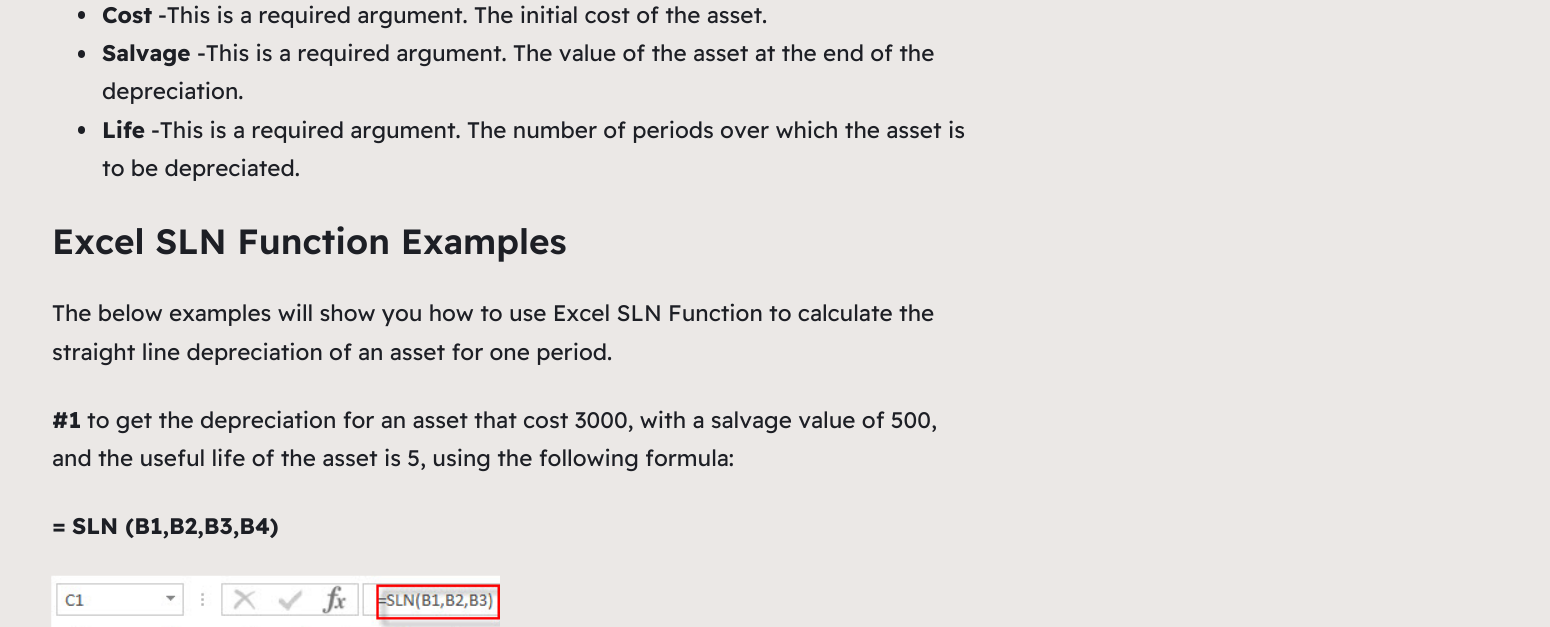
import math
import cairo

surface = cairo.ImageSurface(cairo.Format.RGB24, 1550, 627)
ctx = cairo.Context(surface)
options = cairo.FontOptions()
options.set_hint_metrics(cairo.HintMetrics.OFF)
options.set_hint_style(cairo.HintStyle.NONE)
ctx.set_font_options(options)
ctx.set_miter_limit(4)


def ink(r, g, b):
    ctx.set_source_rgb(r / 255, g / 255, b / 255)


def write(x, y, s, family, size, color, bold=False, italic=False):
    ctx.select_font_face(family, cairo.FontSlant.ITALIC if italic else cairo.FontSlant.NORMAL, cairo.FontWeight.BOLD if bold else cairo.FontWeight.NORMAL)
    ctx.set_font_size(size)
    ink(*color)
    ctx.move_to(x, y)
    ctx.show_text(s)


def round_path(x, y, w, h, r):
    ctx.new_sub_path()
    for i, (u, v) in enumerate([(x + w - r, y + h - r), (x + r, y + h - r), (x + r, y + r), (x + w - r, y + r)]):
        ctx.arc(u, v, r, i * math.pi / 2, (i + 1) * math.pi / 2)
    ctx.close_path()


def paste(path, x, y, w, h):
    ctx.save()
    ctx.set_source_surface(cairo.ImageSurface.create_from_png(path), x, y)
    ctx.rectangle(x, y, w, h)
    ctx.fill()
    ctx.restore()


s1 = dict(family="Readex Pro", size=22.5, color=(29, 31, 37), bold=True)
s2 = dict(family="Readex Pro", size=22.5, color=(29, 31, 37))
s3 = dict(family="Readex Pro SemiBold", size=35, color=(29, 31, 37))

ink(235, 232, 230)
ctx.paint()
ink(29, 31, 37)
round_path(78, 11, 7, 8, 3.5)
ctx.fill()
write(102, 23, "Cost", **s1)
write(158, 23, "-This is a required argument. The initial cost of the asset.", **s2)
round_path(78, 50, 7, 8, 3.5)
ctx.fill()
write(102, 61, "Salvage", **s1)
write(197, 61, "-This is a required argument. The value of the asset at the end of the", **s2)
write(102, 99, "depreciation.", **s2)
round_path(78, 126, 7, 8, 3.5)
ctx.fill()
write(102, 138, "Life", **s1)
write(151, 138, "-This is a required argument. The number of periods over which the asset is", **s2)
write(102, 176, "to be depreciated.", **s2)
write(52, 254, "Excel SLN Function Examples", **s3)
write(52, 321, "The below examples will show you how to use Excel SLN Function to calculate the", **s2)
write(52, 360, "straight line depreciation of an asset for one period.", **s2)
write(52, 428, "#1", **s1)
write(87, 428, "to get the depreciation for an asset that cost 3000, with a salvage value of 500,", **s2)
write(52, 466, "and the useful life of the asset is 5, using the following formula:", **s2)
write(52, 534, "=", **s1)
write(72, 534, "SLN (B1,B2,B3,B4)", **s1)
paste("pic1.png", 51, 575, 449, 52)
surface.write_to_png("screenshot.png")
